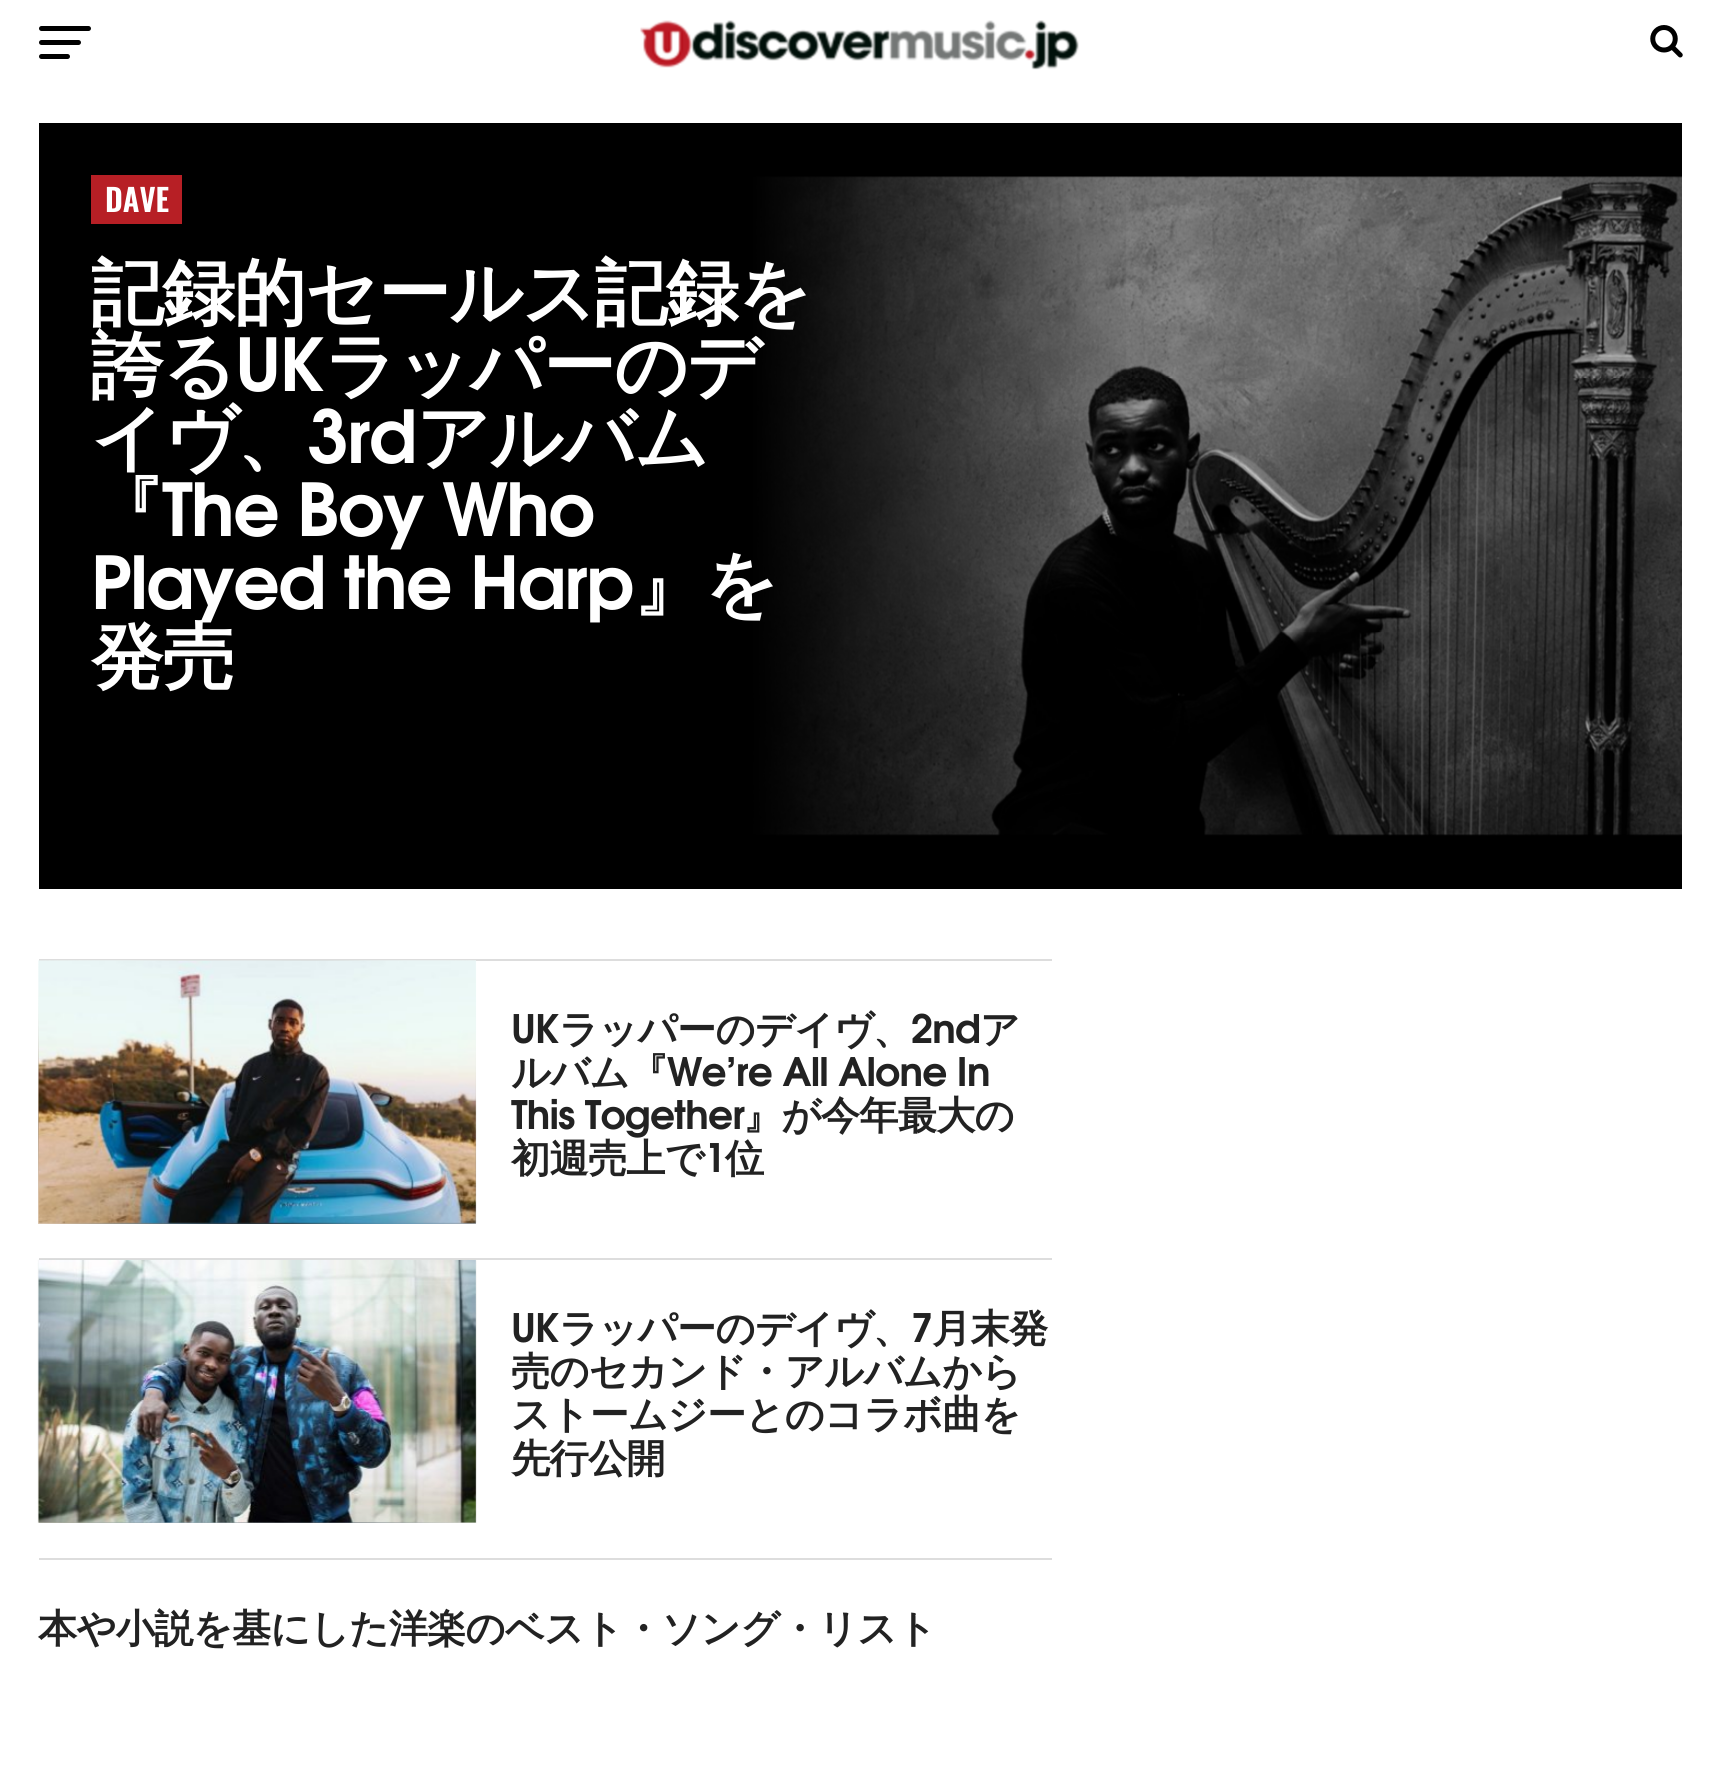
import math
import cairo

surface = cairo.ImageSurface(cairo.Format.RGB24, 1720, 1768)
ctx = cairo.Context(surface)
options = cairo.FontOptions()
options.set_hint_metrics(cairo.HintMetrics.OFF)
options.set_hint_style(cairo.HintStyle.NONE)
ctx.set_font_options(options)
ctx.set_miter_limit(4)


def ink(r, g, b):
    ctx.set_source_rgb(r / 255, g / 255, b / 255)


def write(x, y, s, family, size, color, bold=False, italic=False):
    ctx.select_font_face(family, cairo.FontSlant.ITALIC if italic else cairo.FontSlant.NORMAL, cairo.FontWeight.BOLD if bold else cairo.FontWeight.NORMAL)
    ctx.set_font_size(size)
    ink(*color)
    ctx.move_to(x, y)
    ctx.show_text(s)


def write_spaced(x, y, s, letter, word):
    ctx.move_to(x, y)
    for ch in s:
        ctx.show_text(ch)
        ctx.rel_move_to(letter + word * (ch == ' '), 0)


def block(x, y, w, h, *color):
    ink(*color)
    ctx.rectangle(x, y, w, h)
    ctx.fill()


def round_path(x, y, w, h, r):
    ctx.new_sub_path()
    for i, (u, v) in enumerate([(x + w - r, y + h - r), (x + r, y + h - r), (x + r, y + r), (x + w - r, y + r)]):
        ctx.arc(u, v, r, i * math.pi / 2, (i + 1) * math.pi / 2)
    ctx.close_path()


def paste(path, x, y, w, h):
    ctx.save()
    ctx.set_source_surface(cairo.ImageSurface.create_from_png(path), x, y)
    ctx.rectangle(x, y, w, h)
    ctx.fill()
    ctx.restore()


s1 = dict(family="Oswald SemiBold", size=31, color=(255, 255, 255))

ink(255, 255, 255)
ctx.paint()
ink(0, 0, 0)
round_path(39, 26, 52, 5, 2.5)
ctx.fill()
round_path(39, 40, 42, 5, 2.5)
ctx.fill()
round_path(39, 54, 31, 5, 2.5)
ctx.fill()
paste("pic1.png", 640, 20, 439, 50)
paste("pic2.png", 1650, 25, 33, 33)
block(39, 123, 1643, 766, 0, 0, 0)
block(91, 175, 91, 49, 183, 31, 37)
write(105, 212, "DAVE", **s1)
paste("pic3.png", 753, 176, 929, 660)
gradient = cairo.LinearGradient(1134, 506, 586, 506)
gradient.add_color_stop_rgba(0, 0, 0, 0, 0)
gradient.add_color_stop_rgba(0.7, 0, 0, 0, 1)
gradient.add_color_stop_rgba(1, 0, 0, 0, 1)
ctx.set_source(gradient)
ctx.rectangle(753, 176, 373, 660)
ctx.fill()
ctx.select_font_face("WenQuanYi Zen Hei", cairo.FontSlant.NORMAL, cairo.FontWeight.BOLD)
ctx.set_font_size(72.75)
ink(255, 255, 255)
write_spaced(91, 318, "記録的セールス記録を", -1.5, 0)
write_spaced(91, 391, "誇る", -1.5, 0)
ctx.select_font_face("TeX Gyre Adventor", cairo.FontSlant.NORMAL, cairo.FontWeight.BOLD)
write_spaced(235, 391, "UK", -1.5, 0)
ctx.select_font_face("WenQuanYi Zen Hei", cairo.FontSlant.NORMAL, cairo.FontWeight.BOLD)
write_spaced(324, 391, "ラッパーのデ", -1.5, 0)
write_spaced(91, 463, "イヴ、", -1.5, 0)
ctx.select_font_face("TeX Gyre Adventor", cairo.FontSlant.NORMAL, cairo.FontWeight.BOLD)
write_spaced(308, 463, "3rd", -1.5, 0)
ctx.select_font_face("WenQuanYi Zen Hei", cairo.FontSlant.NORMAL, cairo.FontWeight.BOLD)
write_spaced(416, 463, "アルバム", -1.5, 0)
write_spaced(91, 536, "『", -1.5, 0)
ctx.select_font_face("TeX Gyre Adventor", cairo.FontSlant.NORMAL, cairo.FontWeight.BOLD)
write_spaced(162, 536, "The Boy Who", -1.5, 0)
write_spaced(91, 609, "Played the Harp", -1.5, 0)
ctx.select_font_face("WenQuanYi Zen Hei", cairo.FontSlant.NORMAL, cairo.FontWeight.BOLD)
write_spaced(633, 609, "』を", -1.5, 0)
write_spaced(91, 682, "発売", -1.5, 0)
block(39, 959, 1013, 2, 221, 221, 221)
paste("pic4.png", 38, 960, 438, 264)
paste("pic5.png", 38, 961, 439, 263)
ctx.select_font_face("TeX Gyre Adventor", cairo.FontSlant.NORMAL, cairo.FontWeight.BOLD)
ctx.set_font_size(39.2)
ink(34, 34, 34)
write_spaced(511, 1043, "UK", -0.75, 0)
ctx.select_font_face("WenQuanYi Zen Hei", cairo.FontSlant.NORMAL, cairo.FontWeight.BOLD)
write_spaced(559, 1043, "ラッパーのデイヴ、", -0.75, 0)
ctx.select_font_face("TeX Gyre Adventor", cairo.FontSlant.NORMAL, cairo.FontWeight.BOLD)
write_spaced(911, 1043, "2nd", -0.75, 0)
ctx.select_font_face("WenQuanYi Zen Hei", cairo.FontSlant.NORMAL, cairo.FontWeight.BOLD)
write_spaced(980, 1043, "ア", -0.75, 0)
write_spaced(511, 1086, "ルバム『", -0.75, 0)
ctx.select_font_face("TeX Gyre Adventor", cairo.FontSlant.NORMAL, cairo.FontWeight.BOLD)
write_spaced(667, 1086, "We’re All Alone In", -0.75, 0)
write_spaced(511, 1129, "This Together", -0.75, 0)
ctx.select_font_face("WenQuanYi Zen Hei", cairo.FontSlant.NORMAL, cairo.FontWeight.BOLD)
write_spaced(743, 1129, "』が今年最大の", -0.75, 0)
write_spaced(511, 1172, "初週売上で", -0.75, 0)
ctx.select_font_face("TeX Gyre Adventor", cairo.FontSlant.NORMAL, cairo.FontWeight.BOLD)
write_spaced(704, 1172, "1", -0.75, 0)
ctx.select_font_face("WenQuanYi Zen Hei", cairo.FontSlant.NORMAL, cairo.FontWeight.BOLD)
write_spaced(725, 1172, "位", -0.75, 0)
block(39, 1258, 1013, 2, 221, 221, 221)
paste("pic6.png", 37, 1259, 440, 264)
paste("pic7.png", 38, 1260, 438, 263)
ctx.select_font_face("TeX Gyre Adventor", cairo.FontSlant.NORMAL, cairo.FontWeight.BOLD)
ink(34, 34, 34)
write_spaced(511, 1342, "UK", -0.75, 0)
ctx.select_font_face("WenQuanYi Zen Hei", cairo.FontSlant.NORMAL, cairo.FontWeight.BOLD)
write_spaced(559, 1342, "ラッパーのデイヴ、", -0.75, 0)
ctx.select_font_face("TeX Gyre Adventor", cairo.FontSlant.NORMAL, cairo.FontWeight.BOLD)
write_spaced(911, 1342, "7", -0.75, 0)
ctx.select_font_face("WenQuanYi Zen Hei", cairo.FontSlant.NORMAL, cairo.FontWeight.BOLD)
write_spaced(932, 1342, "月末発", -0.75, 0)
write_spaced(511, 1385, "売のセカンド・アルバムから", -0.75, 0)
write_spaced(511, 1428, "ストームジーとのコラボ曲を", -0.75, 0)
write_spaced(511, 1472, "先行公開", -0.75, 0)
block(39, 1558, 1013, 2, 221, 221, 221)
ink(34, 34, 34)
write_spaced(38, 1642, "本や小説を基にした洋楽のベスト・ソング・リスト", -0.75, 0)
surface.write_to_png("screenshot.png")
